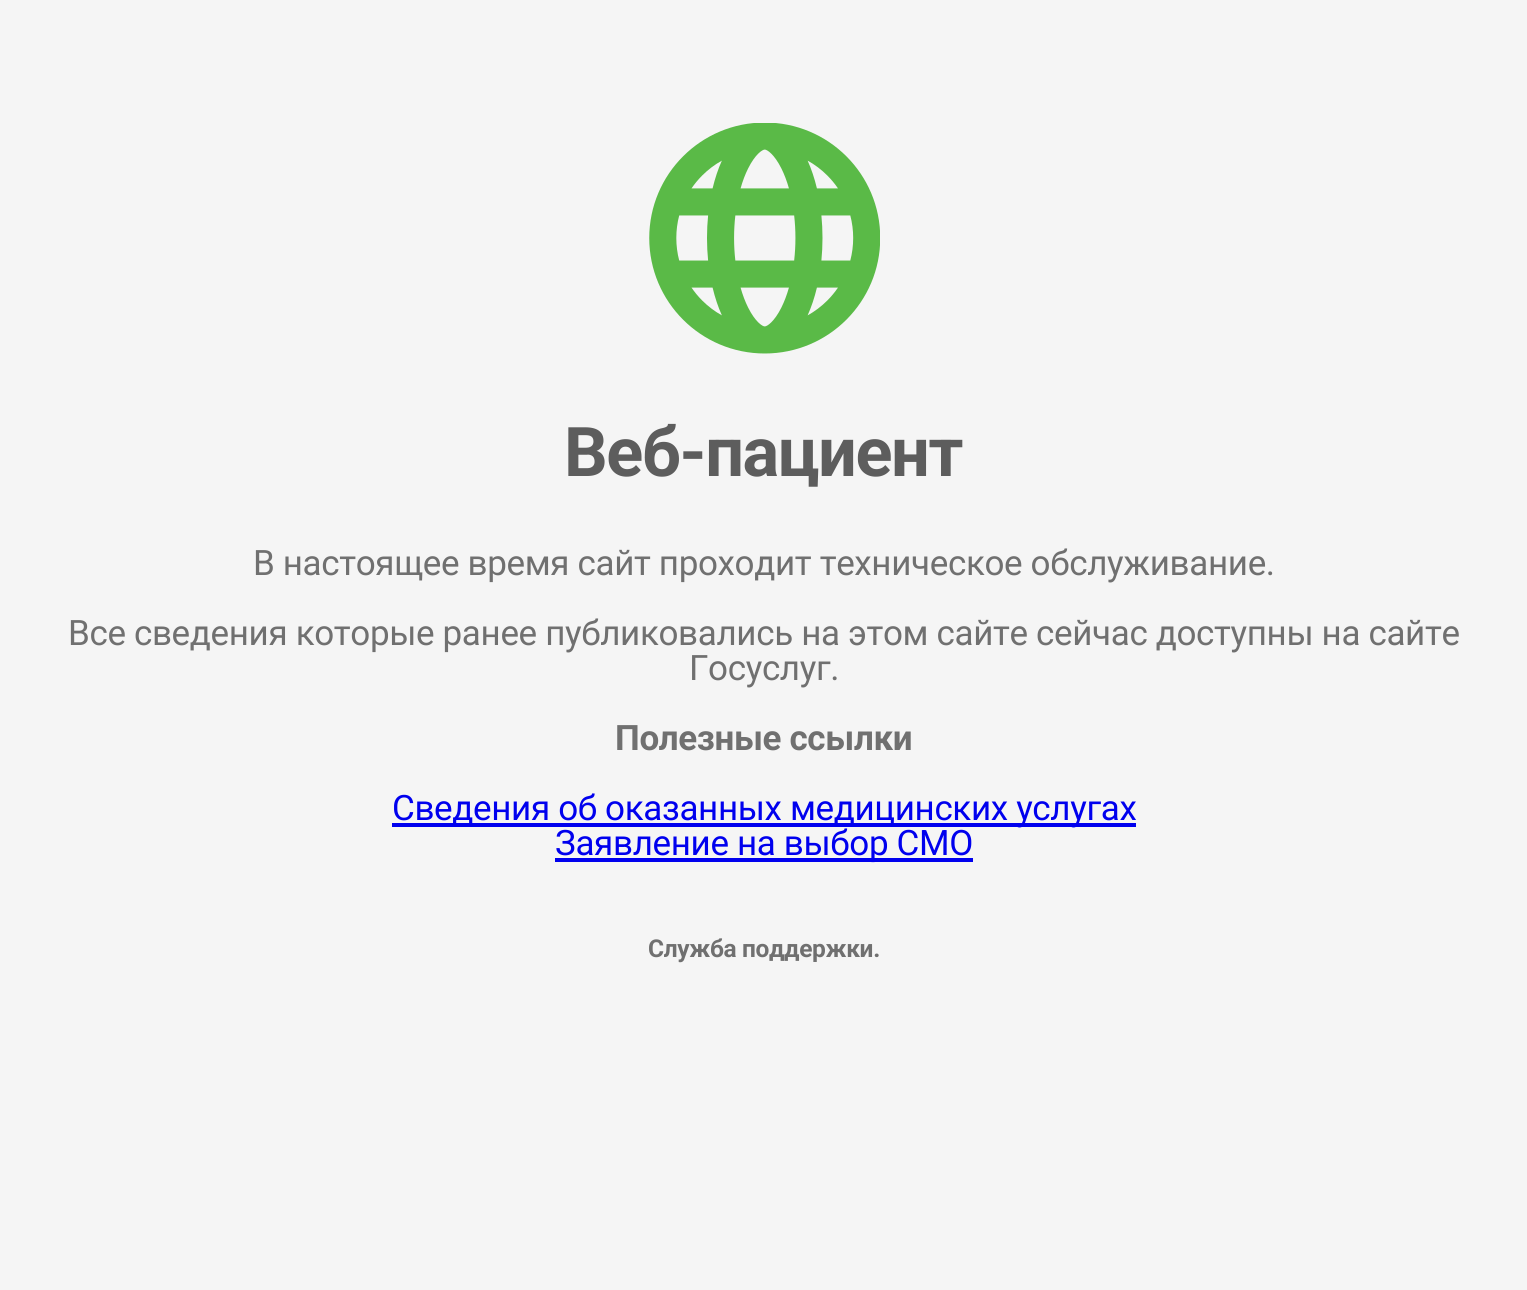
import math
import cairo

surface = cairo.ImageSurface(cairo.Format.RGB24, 1527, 1290)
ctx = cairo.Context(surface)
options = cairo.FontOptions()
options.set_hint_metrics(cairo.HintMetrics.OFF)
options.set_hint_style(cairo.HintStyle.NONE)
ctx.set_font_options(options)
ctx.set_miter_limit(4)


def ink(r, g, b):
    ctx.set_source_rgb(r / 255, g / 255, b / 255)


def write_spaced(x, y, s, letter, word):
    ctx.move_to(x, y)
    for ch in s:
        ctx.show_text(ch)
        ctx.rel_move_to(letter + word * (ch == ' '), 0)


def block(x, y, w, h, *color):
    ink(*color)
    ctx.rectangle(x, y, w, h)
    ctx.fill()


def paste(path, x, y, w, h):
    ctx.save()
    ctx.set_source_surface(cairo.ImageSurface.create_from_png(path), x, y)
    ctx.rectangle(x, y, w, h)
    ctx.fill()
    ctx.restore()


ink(245, 245, 245)
ctx.paint()
paste("pic1.png", 649, 123, 231, 231)
ctx.select_font_face("Roboto", cairo.FontSlant.NORMAL, cairo.FontWeight.BOLD)
ctx.set_font_size(68.5)
ink(93, 93, 93)
write_spaced(564, 476, "Веб-пациент", -1.4, 0)
ctx.select_font_face("Roboto")
ctx.set_font_size(35)
ink(112, 112, 112)
write_spaced(253, 575, "В настоящее время сайт проходит техническое обслуживание.", -0.35, 0)
write_spaced(68, 645, "Все сведения которые ранее публиковались на этом сайте сейчас доступны на сайте", -0.35, 0)
write_spaced(689, 680, "Госуслуг.", -0.35, 0)
ctx.select_font_face("Roboto", cairo.FontSlant.NORMAL, cairo.FontWeight.BOLD)
write_spaced(615, 750, "Полезные ссылки", -0.35, 0)
block(392, 823, 744, 4, 0, 0, 238)
ctx.select_font_face("Roboto")
write_spaced(392, 820, "Сведения об оказанных медицинских услугах", -0.35, 0)
block(555, 858, 418, 4, 0, 0, 238)
write_spaced(555, 855, "Заявление на выбор СМО", -0.35, 0)
ctx.select_font_face("Roboto", cairo.FontSlant.NORMAL, cairo.FontWeight.BOLD)
ctx.set_font_size(24.5)
ink(112, 112, 112)
write_spaced(648, 957, "Служба поддержки.", -0.35, 0)
surface.write_to_png("screenshot.png")
